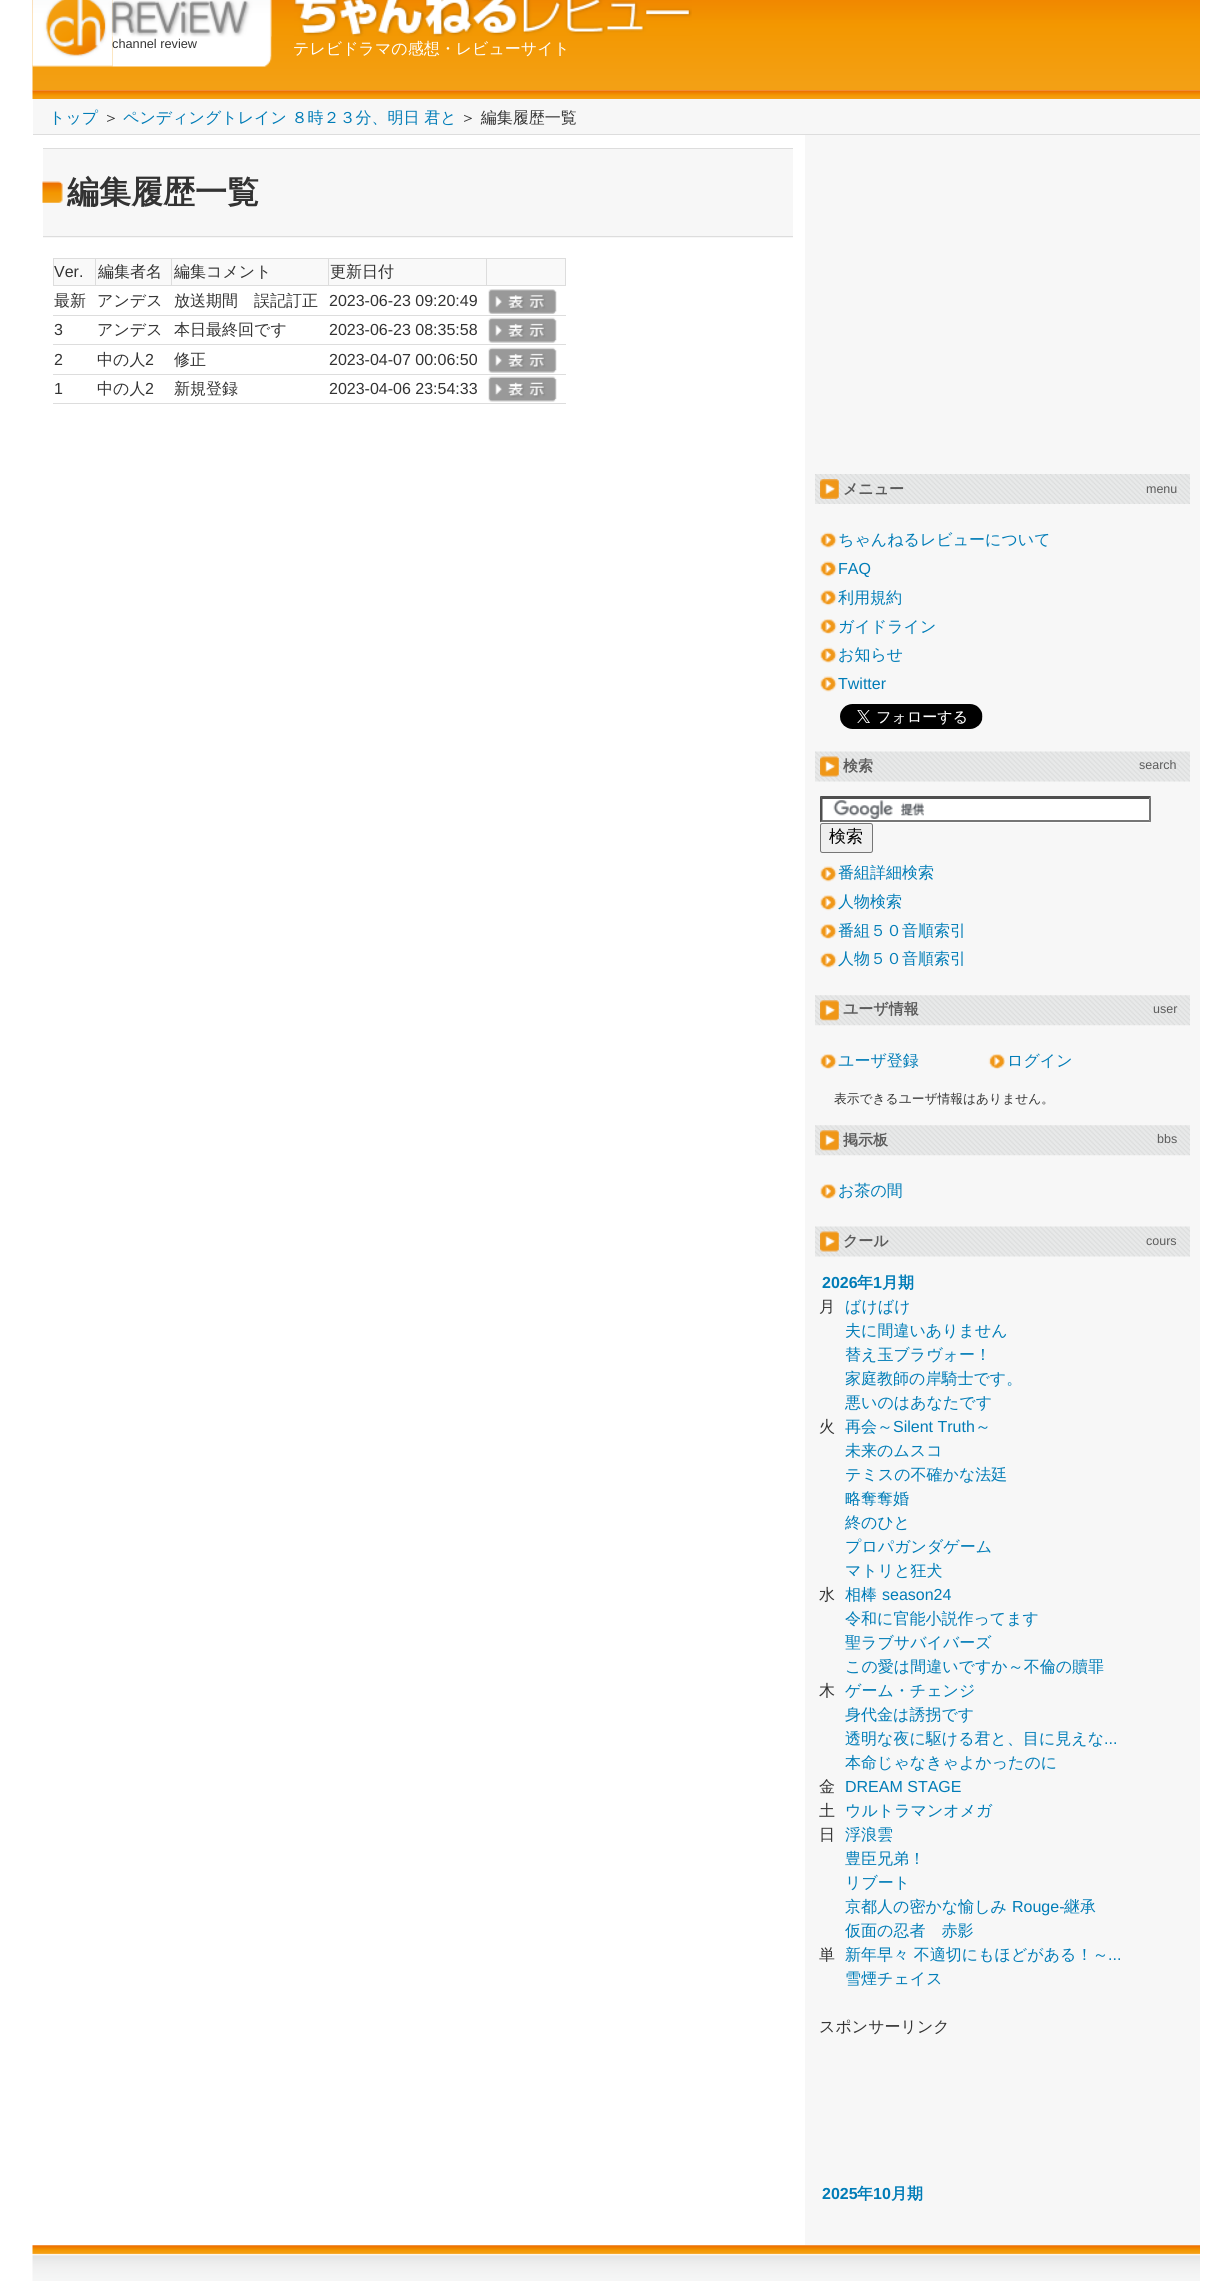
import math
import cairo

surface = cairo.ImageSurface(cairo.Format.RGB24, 1231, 2281)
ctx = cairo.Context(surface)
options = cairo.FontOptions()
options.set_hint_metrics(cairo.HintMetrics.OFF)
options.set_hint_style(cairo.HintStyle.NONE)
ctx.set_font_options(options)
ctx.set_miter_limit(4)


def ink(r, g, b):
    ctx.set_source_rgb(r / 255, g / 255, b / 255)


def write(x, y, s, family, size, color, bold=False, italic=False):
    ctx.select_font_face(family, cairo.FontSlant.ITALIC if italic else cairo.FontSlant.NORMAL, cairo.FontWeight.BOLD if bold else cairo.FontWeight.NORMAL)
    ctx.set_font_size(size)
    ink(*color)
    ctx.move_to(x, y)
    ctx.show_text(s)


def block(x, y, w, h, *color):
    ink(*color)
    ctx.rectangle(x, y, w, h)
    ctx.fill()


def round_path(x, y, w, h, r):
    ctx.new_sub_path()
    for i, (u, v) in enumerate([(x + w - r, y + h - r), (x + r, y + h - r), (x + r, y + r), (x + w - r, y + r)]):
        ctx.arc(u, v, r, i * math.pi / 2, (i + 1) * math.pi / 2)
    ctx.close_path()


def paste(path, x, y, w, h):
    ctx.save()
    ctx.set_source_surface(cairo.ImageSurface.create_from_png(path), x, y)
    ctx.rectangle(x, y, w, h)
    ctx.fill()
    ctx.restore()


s1 = dict(family="Liberation Sans", size=12.75, color=(51, 51, 51))
s2 = dict(family="WenQuanYi Zen Hei Medium", size=16, color=(255, 255, 255))
s3 = dict(family="WenQuanYi Zen Hei Medium", size=16, color=(0, 124, 183))
s4 = dict(family="WenQuanYi Zen Hei Medium", size=16, color=(51, 51, 51))
s5 = dict(family="WenQuanYi Zen Hei", size=32, color=(51, 51, 51), bold=True)
s6 = dict(family="Liberation Sans", size=16, color=(51, 51, 51))
s7 = dict(family="WenQuanYi Zen Hei", size=15, color=(92, 92, 92), bold=True)
s8 = dict(family="Liberation Sans", size=12.5, color=(92, 92, 92))
s9 = dict(family="Liberation Sans", size=16, color=(0, 124, 183))
s10 = dict(family="WenQuanYi Zen Hei Medium", size=17, color=(0, 0, 0))
s11 = dict(family="WenQuanYi Zen Hei Medium", size=12.75, color=(51, 51, 51))
s12 = dict(family="Liberation Sans", size=16, color=(0, 124, 183), bold=True)
s13 = dict(family="WenQuanYi Zen Hei", size=16, color=(0, 124, 183), bold=True)

ink(255, 255, 255)
ctx.paint()
paste("pic1.png", 32, 0, 1168, 91)
paste("pic2.png", 32, 0, 81, 67)
paste("pic3.png", 112, 0, 160, 67)
paste("pic4.png", 112, 0, 160, 37)
write(112, 48, "channel review", **s1)
paste("pic5.png", 294, 0, 398, 37)
write(293, 54, "テレビドラマの感想・レビューサイト", **s2)
paste("pic6.png", 32, 90, 1168, 9)
block(33, 99, 1167, 35, 247, 247, 247)
block(33, 134, 1167, 1, 221, 221, 221)
write(49, 123, "トップ", **s3)
write(103, 123, "＞", **s4)
write(123, 123, "ペンディングトレイン ８時２３分、明日 君と", **s3)
write(460, 123, "＞ 編集履歴一覧", **s4)
block(805, 135, 395, 2110, 247, 247, 247)
block(43, 149, 750, 89, 247, 247, 247)
block(43, 148, 750, 1, 221, 221, 221)
block(43, 236, 750, 1, 221, 221, 221)
paste("pic7.png", 42, 181, 21, 22)
write(67, 203, "編集履歴一覧", **s5)
block(54, 259, 41, 26, 249, 249, 249)
block(486, 258, 80, 1, 221, 221, 221)
block(329, 259, 236, 26, 249, 249, 249)
block(565, 258, 1, 28, 221, 221, 221)
block(486, 285, 80, 1, 221, 221, 221)
block(486, 258, 1, 28, 221, 221, 221)
block(328, 258, 160, 1, 221, 221, 221)
block(328, 285, 160, 1, 221, 221, 221)
block(328, 258, 1, 28, 221, 221, 221)
block(171, 258, 158, 1, 221, 221, 221)
block(96, 259, 232, 26, 249, 249, 249)
block(171, 285, 158, 1, 221, 221, 221)
block(171, 258, 1, 28, 221, 221, 221)
block(95, 258, 78, 1, 221, 221, 221)
block(95, 285, 78, 1, 221, 221, 221)
block(95, 258, 1, 28, 221, 221, 221)
block(53, 258, 43, 1, 221, 221, 221)
block(53, 285, 43, 1, 221, 221, 221)
block(53, 258, 1, 28, 221, 221, 221)
write(54, 277, "Ver.", **s6)
write(98, 277, "編集者名", **s4)
write(174, 277, "編集コメント", **s4)
write(330, 277, "更新日付", **s4)
block(53, 315, 513, 1, 221, 221, 221)
paste("pic8.png", 488, 289, 69, 25)
write(54, 306, "最新", **s4)
write(97, 306, "アンデス", **s4)
write(174, 306, "放送期間　誤記訂正", **s4)
write(329, 306, "2023-06-23 09:20:49", **s6)
block(53, 344, 513, 1, 221, 221, 221)
paste("pic9.png", 488, 317, 69, 26)
write(54, 335, "3", **s6)
write(97, 335, "アンデス", **s4)
write(174, 335, "本日最終回です", **s4)
write(329, 335, "2023-06-23 08:35:58", **s6)
block(53, 374, 513, 1, 221, 221, 221)
paste("pic9.png", 488, 347, 69, 26)
write(54, 365, "2", **s6)
write(97, 365, "中の人", **s4)
write(145, 365, "2", **s6)
write(174, 365, "修正", **s4)
write(329, 365, "2023-04-07 00:06:50", **s6)
block(53, 403, 513, 1, 221, 221, 221)
paste("pic10.png", 488, 376, 69, 26)
write(54, 394, "1", **s6)
write(97, 394, "中の人", **s4)
write(145, 394, "2", **s6)
write(174, 394, "新規登録", **s4)
write(329, 394, "2023-04-06 23:54:33", **s6)
paste("pic11.png", 815, 474, 375, 30)
paste("pic12.png", 820, 479, 19, 20)
write(843, 494, "メニュー", **s7)
write(1146, 493, "menu", **s8)
paste("pic13.png", 820, 532, 17, 16)
write(838, 545, "ちゃんねるレビューについて", **s3)
paste("pic14.png", 820, 561, 17, 16)
write(838, 574, "FAQ", **s9)
paste("pic15.png", 820, 590, 17, 16)
write(838, 603, "利用規約", **s3)
paste("pic16.png", 820, 619, 17, 15)
write(838, 632, "ガイドライン", **s3)
paste("pic13.png", 820, 647, 17, 16)
write(838, 660, "お知らせ", **s3)
paste("pic14.png", 820, 676, 17, 16)
write(838, 689, "Twitter", **s9)
paste("pic17.png", 840, 704, 143, 25)
paste("pic18.png", 815, 751, 375, 31)
paste("pic19.png", 820, 756, 19, 21)
write(843, 771, "検索", **s7)
write(1139, 769, "search", **s8)
block(820, 796, 331, 27, 255, 255, 255)
paste("pic20.png", 833, 800, 92, 19)
ink(79, 79, 79)
ctx.new_path()
ctx.move_to(820, 796)
ctx.line_to(1151, 796)
ctx.line_to(1149, 799)
ctx.line_to(822, 799)
ctx.close_path()
ctx.fill()
ink(118, 118, 118)
ctx.new_path()
ctx.move_to(1151, 796)
ctx.line_to(1151, 822.5)
ctx.line_to(1149, 820)
ctx.line_to(1149, 799)
ctx.close_path()
ctx.fill()
ctx.new_path()
ctx.move_to(1151, 822)
ctx.line_to(820, 822)
ctx.line_to(822, 820)
ctx.line_to(1149, 820)
ctx.close_path()
ctx.fill()
ink(79, 79, 79)
ctx.new_path()
ctx.move_to(820, 822.5)
ctx.line_to(820, 796)
ctx.line_to(822.5, 799)
ctx.line_to(822.5, 820)
ctx.close_path()
ctx.fill()
ink(239, 239, 239)
round_path(820.5, 823.5, 52, 29, 2)
ctx.fill_preserve()
ink(118, 118, 118)
ctx.set_line_width(1)
ctx.stroke()
write(829, 842, "検索", **s10)
paste("pic14.png", 820, 866, 17, 16)
write(838, 878, "番組詳細検索", **s3)
paste("pic15.png", 820, 895, 17, 16)
write(838, 907, "人物検索", **s3)
paste("pic16.png", 820, 924, 17, 15)
write(838, 936, "番組５０音順索引", **s3)
paste("pic13.png", 820, 952, 17, 16)
write(838, 964, "人物５０音順索引", **s3)
paste("pic21.png", 815, 995, 375, 31)
paste("pic22.png", 820, 1000, 19, 21)
write(843, 1014, "ユーザ情報", **s7)
write(1153, 1013, "user", **s8)
paste("pic16.png", 820, 1054, 17, 15)
write(838, 1066, "ユーザ登録", **s3)
paste("pic23.png", 988, 1054, 17, 15)
write(1007, 1066, "ログイン", **s3)
write(834, 1103, "表示できるユーザ情報はありません。", **s11)
paste("pic21.png", 815, 1125, 375, 31)
paste("pic24.png", 820, 1130, 19, 21)
write(843, 1145, "掲示板", **s7)
write(1157, 1143, "bbs", **s8)
paste("pic16.png", 820, 1184, 17, 15)
write(838, 1196, "お茶の間", **s3)
paste("pic18.png", 815, 1226, 375, 31)
paste("pic19.png", 820, 1231, 19, 21)
write(843, 1246, "クール", **s7)
write(1146, 1245, "cours", **s8)
write(822, 1288, "2026", **s12)
write(857, 1288, "年", **s13)
write(873, 1288, "1", **s12)
write(882, 1288, "月期", **s13)
write(819, 1312, "月", **s4)
write(845, 1312, "ばけばけ", **s3)
write(845, 1336, "夫に間違いありません", **s3)
write(845, 1360, "替え玉ブラヴォー！", **s3)
write(845, 1384, "家庭教師の岸騎士です。", **s3)
write(845, 1408, "悪いのはあなたです", **s3)
write(819, 1432, "火", **s4)
write(845, 1432, "再会～", **s3)
write(893, 1432, "Silent Truth", **s9)
write(975, 1432, "～", **s3)
write(845, 1456, "未来のムスコ", **s3)
write(845, 1480, "テミスの不確かな法廷", **s3)
write(845, 1504, "略奪奪婚", **s3)
write(845, 1528, "終のひと", **s3)
write(845, 1552, "プロパガンダゲーム", **s3)
write(845, 1576, "マトリと狂犬", **s3)
write(819, 1600, "水", **s4)
write(845, 1600, "相棒", **s3)
write(882, 1600, "season24", **s9)
write(845, 1624, "令和に官能小説作ってます", **s3)
write(845, 1648, "聖ラブサバイバーズ", **s3)
write(845, 1672, "この愛は間違いですか～不倫の贖罪", **s3)
write(819, 1696, "木", **s4)
write(845, 1696, "ゲーム・チェンジ", **s3)
write(845, 1720, "身代金は誘拐です", **s3)
write(845, 1744, "透明な夜に駆ける君と、目に見えな", **s3)
write(1104, 1744, "...", **s9)
write(845, 1768, "本命じゃなきゃよかったのに", **s3)
write(819, 1792, "金", **s4)
write(845, 1792, "DREAM STAGE", **s9)
write(819, 1816, "土", **s4)
write(845, 1816, "ウルトラマンオメガ", **s3)
write(819, 1840, "日", **s4)
write(845, 1840, "浮浪雲", **s3)
write(845, 1864, "豊臣兄弟！", **s3)
write(845, 1888, "リブート", **s3)
write(845, 1912, "京都人の密かな愉しみ", **s3)
write(1012, 1912, "Rouge-", **s9)
write(1064, 1912, "継承", **s3)
write(845, 1936, "仮面の忍者　赤影", **s3)
write(819, 1960, "単", **s4)
write(845, 1960, "新年早々 不適切にもほどがある！～", **s3)
write(1108, 1960, "...", **s9)
write(845, 1984, "雪煙チェイス", **s3)
write(819, 2032, "スポンサーリンク", **s4)
write(822, 2199, "2025", **s12)
write(857, 2199, "年", **s13)
write(873, 2199, "10", **s12)
write(891, 2199, "月期", **s13)
paste("pic25.png", 32, 2245, 1168, 36)
surface.write_to_png("screenshot.png")
